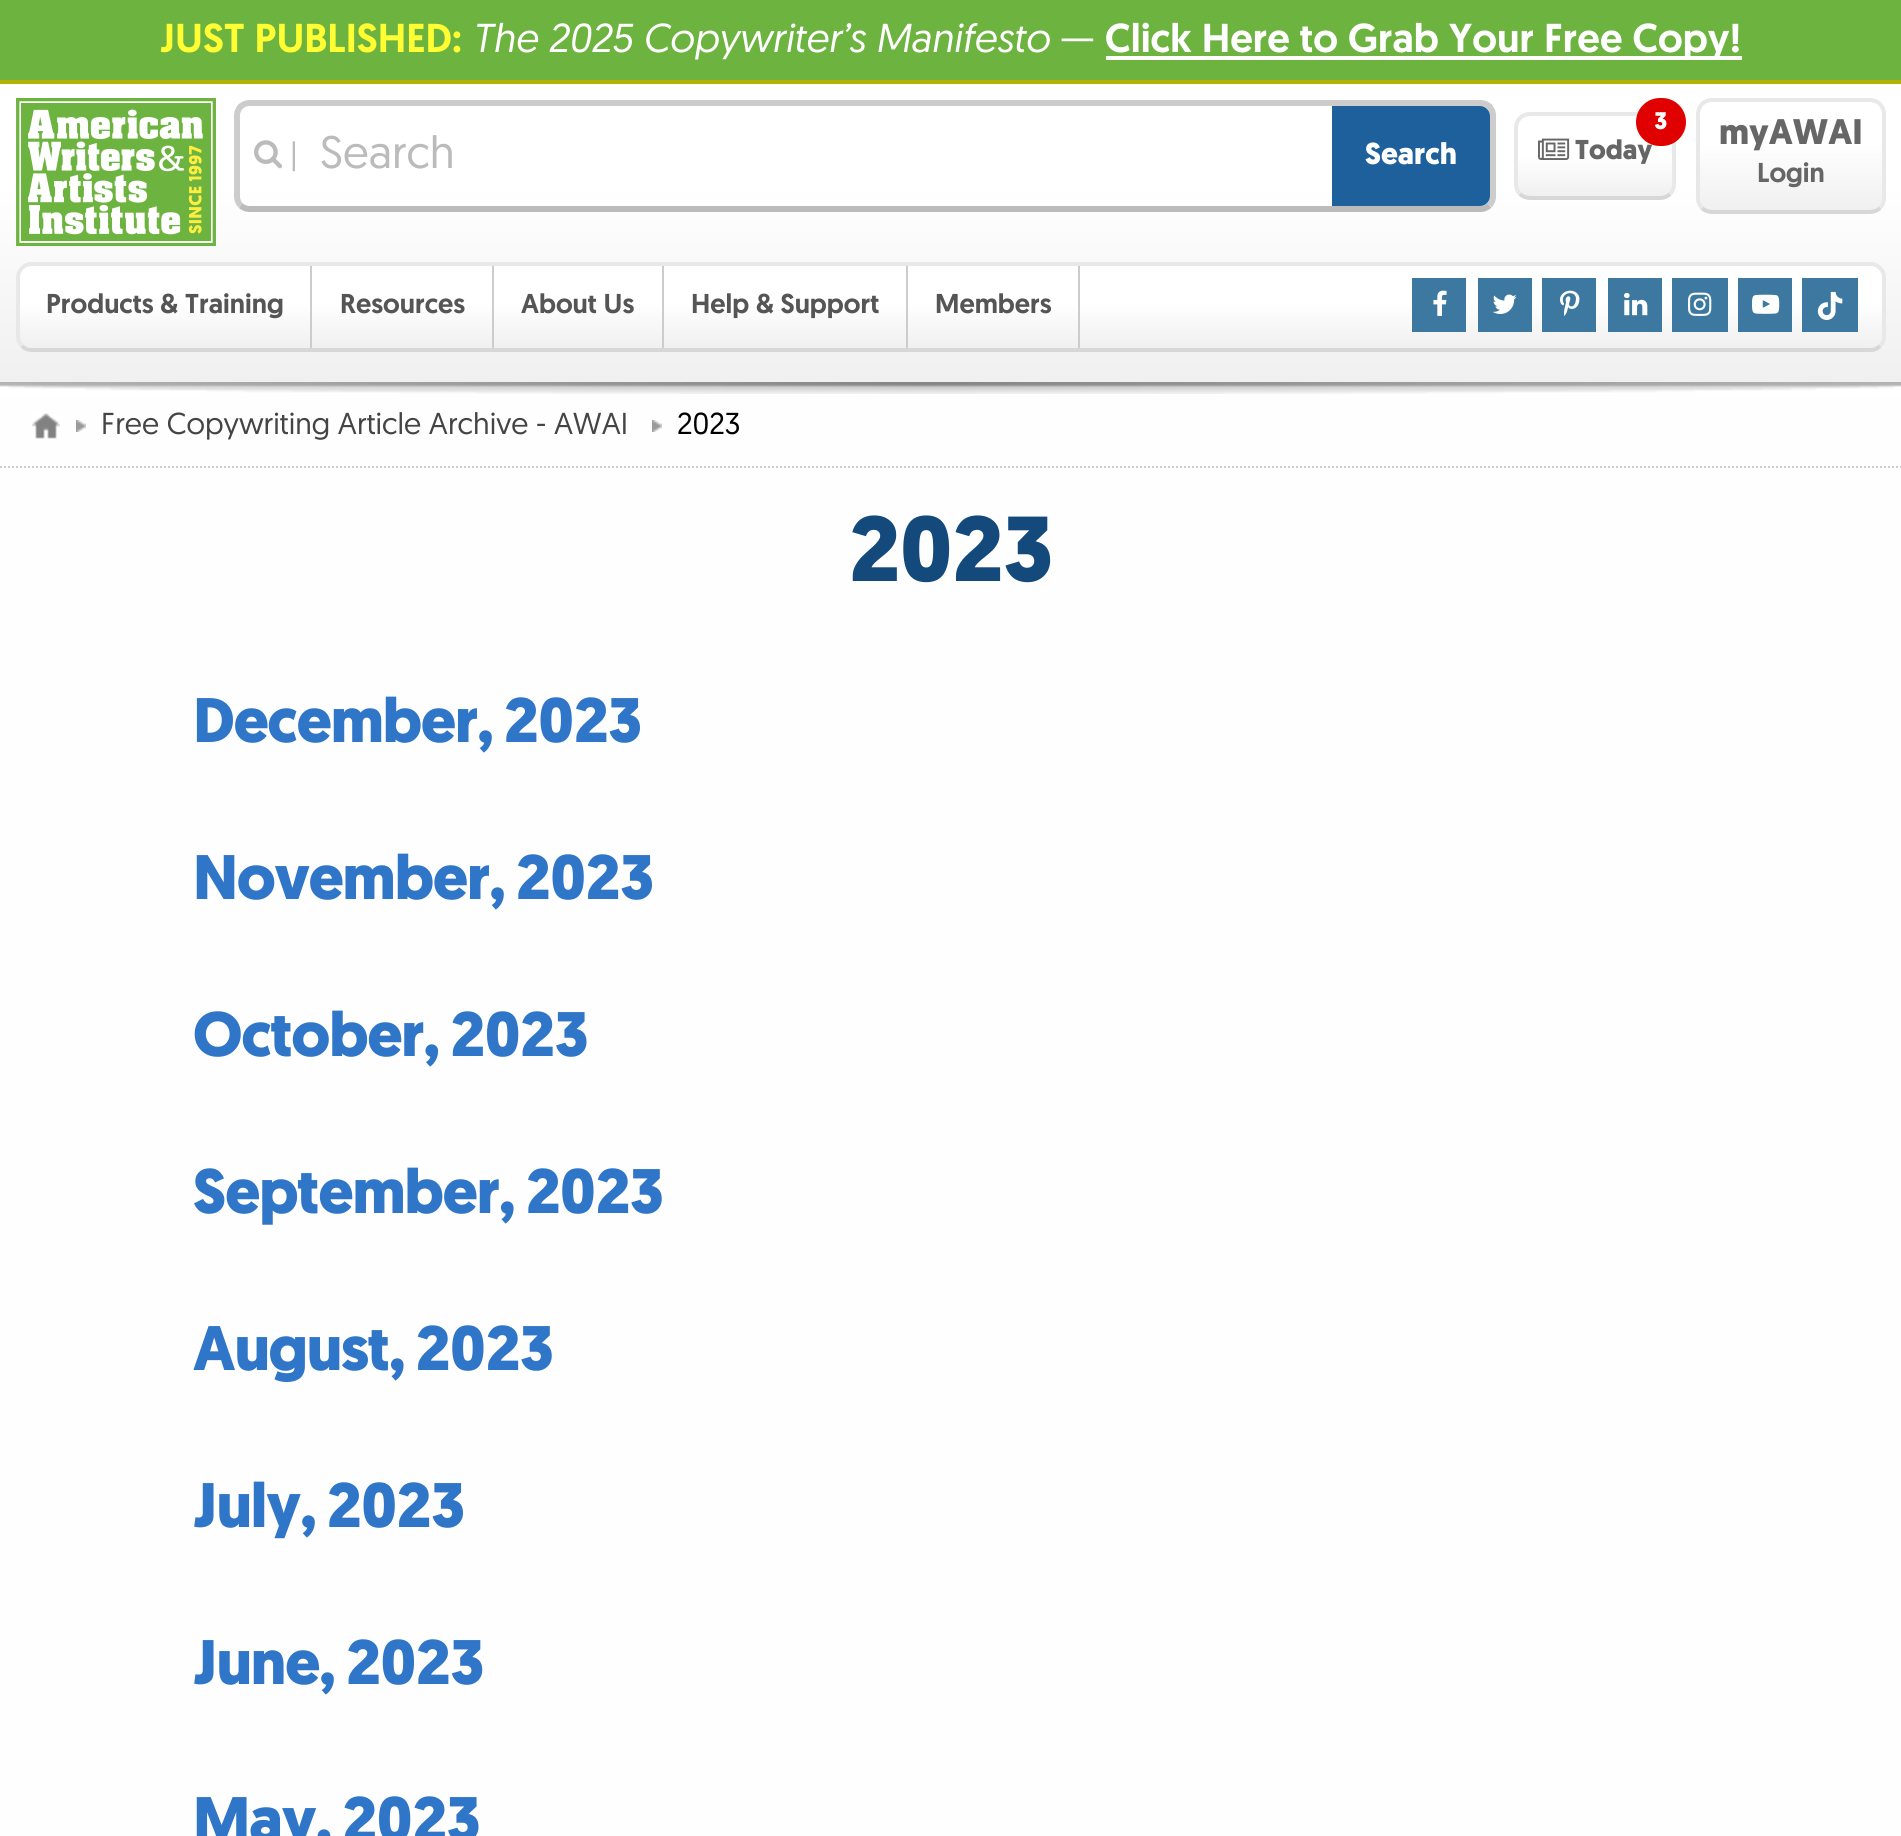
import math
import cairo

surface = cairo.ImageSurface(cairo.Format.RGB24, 1901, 1836)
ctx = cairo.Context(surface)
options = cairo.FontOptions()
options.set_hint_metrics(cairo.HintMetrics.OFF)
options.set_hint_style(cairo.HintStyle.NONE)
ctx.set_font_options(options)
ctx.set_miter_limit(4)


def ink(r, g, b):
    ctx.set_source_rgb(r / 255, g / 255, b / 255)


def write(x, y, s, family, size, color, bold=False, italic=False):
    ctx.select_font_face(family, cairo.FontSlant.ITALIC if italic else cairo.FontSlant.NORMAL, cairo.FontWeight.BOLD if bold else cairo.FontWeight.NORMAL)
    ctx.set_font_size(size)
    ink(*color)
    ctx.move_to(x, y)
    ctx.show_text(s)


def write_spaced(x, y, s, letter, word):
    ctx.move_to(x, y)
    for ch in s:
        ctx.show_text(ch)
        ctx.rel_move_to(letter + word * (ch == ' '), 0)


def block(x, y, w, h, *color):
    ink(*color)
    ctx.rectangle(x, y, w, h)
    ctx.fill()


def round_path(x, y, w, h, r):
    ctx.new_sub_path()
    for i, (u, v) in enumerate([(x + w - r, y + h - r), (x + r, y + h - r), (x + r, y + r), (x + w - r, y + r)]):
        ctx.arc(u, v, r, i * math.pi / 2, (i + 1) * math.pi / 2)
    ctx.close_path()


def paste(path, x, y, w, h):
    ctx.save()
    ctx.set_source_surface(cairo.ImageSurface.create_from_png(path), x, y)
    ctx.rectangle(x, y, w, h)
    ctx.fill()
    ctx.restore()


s1 = dict(family="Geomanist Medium", size=40.3, color=(255, 255, 51))
s2 = dict(family="Geomanist", size=40.3, color=(255, 255, 255), italic=True)
s3 = dict(family="Geomanist", size=40.3, color=(255, 255, 255))
s4 = dict(family="Geomanist Medium", size=40.3, color=(255, 255, 255))
s5 = dict(family="Geomanist", size=30.25, color=(187, 187, 187))
s6 = dict(family="Geomanist", size=45.5, color=(187, 187, 187))
s7 = dict(family="Geomanist", size=30.25, color=(255, 255, 255), bold=True)
s8 = dict(family="Geomanist", size=27.25, color=(102, 102, 102), bold=True)
s9 = dict(family="Geomanist", size=24, color=(255, 255, 255), bold=True)
s10 = dict(family="Geomanist", size=35.5, color=(102, 102, 102), bold=True)
s11 = dict(family="Geomanist Medium", size=27.25, color=(102, 102, 102))
s12 = dict(family="Geomanist Medium", size=27.25, color=(85, 85, 85))
s13 = dict(family="Geomanist", size=30.25, color=(68, 68, 68))
s14 = dict(family="Geomanist", size=30.25, color=(0, 0, 0))

ink(108, 179, 63)
ctx.paint()
block(0, 80, 1901, 4, 178, 178, 4)
write(160, 52, "JUST PUBLISHED:", **s1)
write(472, 52, "The 2025 Copywriter’s Manifesto", **s2)
write(1060, 52, "—", **s3)
block(1106, 56, 636, 4, 255, 255, 255)
write(1105, 52, "Click Here to Grab Your Free Copy!", **s4)
gradient = cairo.LinearGradient(951, 84, 951, 382)
gradient.add_color_stop_rgba(0.34, 1, 1, 1, 1)
gradient.add_color_stop_rgba(1, 0.941, 0.941, 0.941, 1)
ctx.set_source(gradient)
ctx.rectangle(0, 84, 1901, 298)
ctx.fill()
paste("pic1.png", 16, 98, 200, 148)
ctx.new_path()
ctx.move_to(1489.5, 205.5)
ctx.curve_to(1487, 207.5, 1484, 209, 1481, 209)
ctx.line_to(249, 209)
ctx.curve_to(246, 209, 243, 207.5, 240.5, 205.5)
ink(187, 187, 187)
ctx.set_line_width(6)
ctx.stroke()
ctx.new_path()
ctx.move_to(240.5, 205.5)
ctx.curve_to(238.5, 203, 237, 200, 237, 197)
ctx.line_to(237, 115)
ctx.curve_to(237, 112, 238.5, 109, 240.5, 106.5)
ctx.curve_to(243, 104.5, 246, 103, 249, 103)
ctx.line_to(1481, 103)
ctx.curve_to(1484, 103, 1487, 104.5, 1489.5, 106.5)
ctx.curve_to(1491.5, 109, 1493, 112, 1493, 115)
ctx.line_to(1493, 197)
ctx.curve_to(1493, 200, 1491.5, 203, 1489.5, 205.5)
ink(204, 204, 204)
ctx.stroke()
paste("pic2.png", 254, 140, 28, 29)
write(290, 165, "|", **s5)
write(320, 168, "Search", **s6)
ink(30, 96, 156)
ctx.new_path()
ctx.move_to(1332, 106)
ctx.line_to(1480, 106)
ctx.curve_to(1485.5, 106, 1490, 110.5, 1490, 116)
ctx.line_to(1490, 196)
ctx.curve_to(1490, 201.5, 1485.5, 206, 1480, 206)
ctx.line_to(1332, 206)
ctx.close_path()
ctx.fill()
write(1365, 164, "Search", **s7)
ctx.save()
round_path(1514, 112, 162, 88, 16)
ctx.clip()
gradient = cairo.LinearGradient(1595, 116, 1595, 196)
gradient.add_color_stop_rgba(0.5, 1, 1, 1, 1)
gradient.add_color_stop_rgba(1, 0.941, 0.941, 0.941, 1)
ctx.set_source(gradient)
ctx.rectangle(1514, 116, 162, 80)
ctx.fill()
ctx.restore()
ctx.new_path()
ctx.move_to(1670, 194)
ctx.curve_to(1667.5, 196.5, 1663.5, 198, 1660, 198)
ctx.line_to(1530, 198)
ctx.curve_to(1526.5, 198, 1522.5, 196.5, 1520, 194)
ink(215, 215, 215)
ctx.set_line_width(4)
ctx.stroke()
ctx.new_path()
ctx.move_to(1520, 194)
ctx.curve_to(1517.5, 191.5, 1516, 187.5, 1516, 184)
ctx.line_to(1516, 128)
ctx.curve_to(1516, 124.5, 1517.5, 120.5, 1520, 118)
ctx.curve_to(1522.5, 115.5, 1526.5, 114, 1530, 114)
ctx.line_to(1660, 114)
ctx.curve_to(1663.5, 114, 1667.5, 115.5, 1670, 118)
ctx.curve_to(1672.5, 120.5, 1674, 124.5, 1674, 128)
ctx.line_to(1674, 184)
ctx.curve_to(1674, 187.5, 1672.5, 191.5, 1670, 194)
ink(232, 232, 232)
ctx.stroke()
write(1575, 159, "Today", **s8)
ink(224, 0, 0)
round_path(1636, 98, 50, 48, 24)
ctx.fill()
write(1654, 129, "3", **s9)
paste("pic3.png", 1538, 138, 32, 22)
ctx.save()
round_path(1696, 98, 190, 116, 16)
ctx.clip()
gradient = cairo.LinearGradient(1791, 102, 1791, 210)
gradient.add_color_stop_rgba(0.37, 1, 1, 1, 1)
gradient.add_color_stop_rgba(1, 0.941, 0.941, 0.941, 1)
ctx.set_source(gradient)
ctx.rectangle(1696, 102, 190, 108)
ctx.fill()
ctx.restore()
ctx.new_path()
ctx.move_to(1880, 208)
ctx.curve_to(1877.5, 210.5, 1873.5, 212, 1870, 212)
ctx.line_to(1712, 212)
ctx.curve_to(1708.5, 212, 1704.5, 210.5, 1702, 208)
ink(215, 215, 215)
ctx.stroke()
ctx.new_path()
ctx.move_to(1702, 208)
ctx.curve_to(1699.5, 205.5, 1698, 201.5, 1698, 198)
ctx.line_to(1698, 114)
ctx.curve_to(1698, 110.5, 1699.5, 106.5, 1702, 104)
ctx.curve_to(1704.5, 101.5, 1708.5, 100, 1712, 100)
ctx.line_to(1870, 100)
ctx.curve_to(1873.5, 100, 1877.5, 101.5, 1880, 104)
ctx.curve_to(1882.5, 106.5, 1884, 110.5, 1884, 114)
ctx.line_to(1884, 198)
ctx.curve_to(1884, 201.5, 1882.5, 205.5, 1880, 208)
ink(232, 232, 232)
ctx.stroke()
write(1719, 144, "myAWAI", **s10)
write(1757, 182, "Login", **s11)
ctx.save()
round_path(16, 262, 1870, 90, 16)
ctx.clip()
gradient = cairo.LinearGradient(951, 266, 951, 348)
gradient.add_color_stop_rgba(0.45, 1, 1, 1, 1)
gradient.add_color_stop_rgba(1, 0.941, 0.941, 0.941, 1)
ctx.set_source(gradient)
ctx.rectangle(16, 266, 1870, 82)
ctx.fill()
ctx.restore()
ctx.new_path()
ctx.move_to(1880, 346)
ctx.curve_to(1877.5, 348.5, 1874.5, 350, 1871, 350)
ctx.line_to(31, 350)
ctx.curve_to(27.5, 350, 24.5, 348.5, 22, 346)
ink(215, 215, 215)
ctx.stroke()
ctx.new_path()
ctx.move_to(22, 346)
ctx.curve_to(19.5, 343.5, 18, 340.5, 18, 337)
ctx.line_to(18, 277)
ctx.curve_to(18, 273.5, 19.5, 270.5, 22, 268)
ctx.curve_to(24.5, 265.5, 27.5, 264, 31, 264)
ctx.line_to(1871, 264)
ctx.curve_to(1874.5, 264, 1877.5, 265.5, 1880, 268)
ctx.curve_to(1882.5, 270.5, 1884, 273.5, 1884, 277)
ctx.line_to(1884, 337)
ctx.curve_to(1884, 340.5, 1882.5, 343.5, 1880, 346)
ink(232, 232, 232)
ctx.stroke()
block(310, 266, 2, 82, 204, 204, 204)
write(46, 313, "Products & Training", **s12)
block(492, 266, 2, 82, 204, 204, 204)
write(340, 313, "Resources", **s12)
block(662, 266, 2, 82, 204, 204, 204)
write(521, 313, "About Us", **s12)
block(906, 266, 2, 82, 204, 204, 204)
write(691, 313, "Help & Support", **s12)
block(1078, 266, 2, 82, 204, 204, 204)
write(935, 313, "Members", **s12)
block(1412, 278, 54, 54, 60, 120, 160)
paste("pic4.png", 1433, 290, 14, 26)
block(1478, 278, 54, 54, 60, 120, 160)
paste("pic5.png", 1492, 294, 25, 20)
block(1542, 278, 54, 54, 60, 120, 160)
paste("pic6.png", 1560, 290, 20, 26)
block(1608, 278, 54, 54, 60, 120, 160)
paste("pic7.png", 1624, 292, 24, 24)
block(1672, 278, 56, 54, 60, 120, 160)
paste("pic8.png", 1688, 292, 24, 24)
block(1738, 278, 54, 54, 60, 120, 160)
paste("pic9.png", 1752, 294, 28, 20)
block(1802, 278, 56, 54, 60, 120, 160)
paste("pic10.png", 1817, 291, 26, 29)
paste("pic11.png", 0, 382, 1901, 12)
block(0, 394, 1901, 1442, 254, 254, 254)
ctx.new_path()
ctx.move_to(0, 467)
ctx.line_to(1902, 467)
ink(204, 204, 204)
ctx.set_line_width(2)
ctx.set_dash([2, 2])
ctx.stroke()
paste("pic12.png", 32, 413, 28, 26)
paste("pic13.png", 76, 420, 10, 12)
write(101, 434, "Free Copywriting Article Archive - AWAI", **s13)
paste("pic13.png", 652, 420, 10, 12)
write(677, 434, "2023", **s14)
ctx.select_font_face("Geomanist", cairo.FontSlant.NORMAL, cairo.FontWeight.BOLD)
ctx.set_font_size(92)
ink(19, 73, 123)
write_spaced(849, 581, "2023", -1, 0)
ctx.set_font_size(62.75)
ink(47, 117, 200)
write_spaced(193, 742, "December, 2023", -1, 0)
write_spaced(193, 899, "November, 2023", -1, 0)
write_spaced(193, 1056, "October, 2023", -1, 0)
write_spaced(193, 1213, "September, 2023", -1, 0)
write_spaced(193, 1370, "August, 2023", -1, 0)
write_spaced(193, 1527, "July, 2023", -1, 0)
write_spaced(193, 1684, "June, 2023", -1, 0)
write_spaced(193, 1841, "May, 2023", -1, 0)
surface.write_to_png("screenshot.png")
